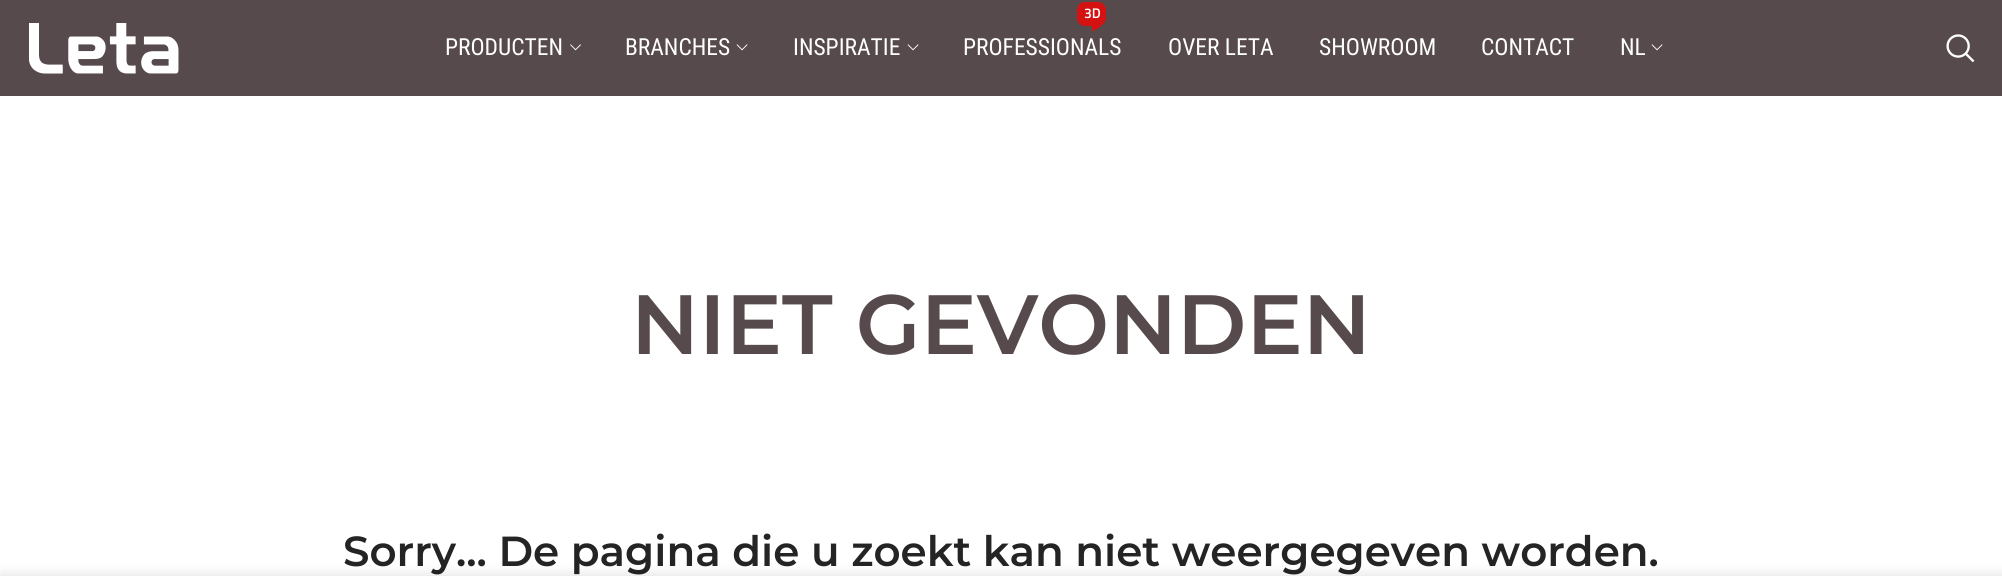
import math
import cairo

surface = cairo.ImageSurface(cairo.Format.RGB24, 2002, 576)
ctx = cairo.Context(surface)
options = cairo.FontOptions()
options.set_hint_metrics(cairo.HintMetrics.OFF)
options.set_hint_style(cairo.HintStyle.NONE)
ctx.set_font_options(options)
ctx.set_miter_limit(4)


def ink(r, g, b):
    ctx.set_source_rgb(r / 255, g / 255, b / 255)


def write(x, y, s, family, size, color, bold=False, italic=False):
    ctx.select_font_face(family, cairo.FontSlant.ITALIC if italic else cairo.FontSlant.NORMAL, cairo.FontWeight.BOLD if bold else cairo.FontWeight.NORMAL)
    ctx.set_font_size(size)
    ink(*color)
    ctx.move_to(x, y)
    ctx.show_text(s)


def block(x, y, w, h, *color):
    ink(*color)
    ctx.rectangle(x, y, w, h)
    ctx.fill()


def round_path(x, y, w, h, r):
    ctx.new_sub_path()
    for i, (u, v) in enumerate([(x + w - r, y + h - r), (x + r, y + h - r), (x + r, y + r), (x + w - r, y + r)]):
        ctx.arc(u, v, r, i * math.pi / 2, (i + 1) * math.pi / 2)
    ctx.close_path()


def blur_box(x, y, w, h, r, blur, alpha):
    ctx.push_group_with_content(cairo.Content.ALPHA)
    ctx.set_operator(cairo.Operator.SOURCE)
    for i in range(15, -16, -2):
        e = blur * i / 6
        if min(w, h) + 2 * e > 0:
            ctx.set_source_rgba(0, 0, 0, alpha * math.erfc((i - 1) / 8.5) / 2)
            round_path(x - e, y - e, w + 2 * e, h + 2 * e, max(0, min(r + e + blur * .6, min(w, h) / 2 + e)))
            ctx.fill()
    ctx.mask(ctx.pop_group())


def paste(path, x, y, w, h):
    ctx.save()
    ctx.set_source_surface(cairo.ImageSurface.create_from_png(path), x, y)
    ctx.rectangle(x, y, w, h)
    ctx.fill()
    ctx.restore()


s1 = dict(family="Roboto Condensed", size=23.5, color=(255, 255, 255))
s2 = dict(family="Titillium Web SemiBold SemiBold", size=14, color=(255, 255, 255))
s3 = dict(family="Montserrat SemiBold", size=84, color=(87, 74, 76))
s4 = dict(family="Montserrat SemiBold", size=42, color=(36, 36, 36))

ink(255, 255, 255)
ctx.paint()
block(0, 0, 2002, 96, 87, 74, 76)
paste("pic1.png", 29, 23, 150, 51)
write(445, 55, "PRODUCTEN", **s1)
paste("pic2.png", 570, 44, 11, 7)
write(625, 55, "BRANCHES", **s1)
paste("pic3.png", 736, 44, 12, 7)
write(793, 55, "INSPIRATIE", **s1)
paste("pic3.png", 907, 44, 12, 7)
ink(212, 18, 18)
round_path(1077, 2, 29, 24, 8)
ctx.fill()
write(1084, 18, "3D", **s2)
ink(212, 18, 18)
ctx.new_path()
ctx.move_to(1092, 25.5)
ctx.line_to(1102.5, 25.5)
ctx.line_to(1092, 31.5)
ctx.close_path()
ctx.fill()
write(963, 55, "PROFESSIONALS", **s1)
write(1168, 55, "OVER LETA", **s1)
write(1319, 55, "SHOWROOM", **s1)
write(1481, 55, "CONTACT", **s1)
write(1620, 55, "NL", **s1)
paste("pic3.png", 1651, 44, 12, 7)
paste("pic4.png", 1946, 34, 29, 29)
write(631, 354, "NIET GEVONDEN", **s3)
write(343, 566, "Sorry... De pagina die u zoekt kan niet weergegeven worden.", **s4)
ink(0, 0, 0)
blur_box(0, 576, 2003, 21, 0, 7, 0.14)
surface.write_to_png("screenshot.png")
